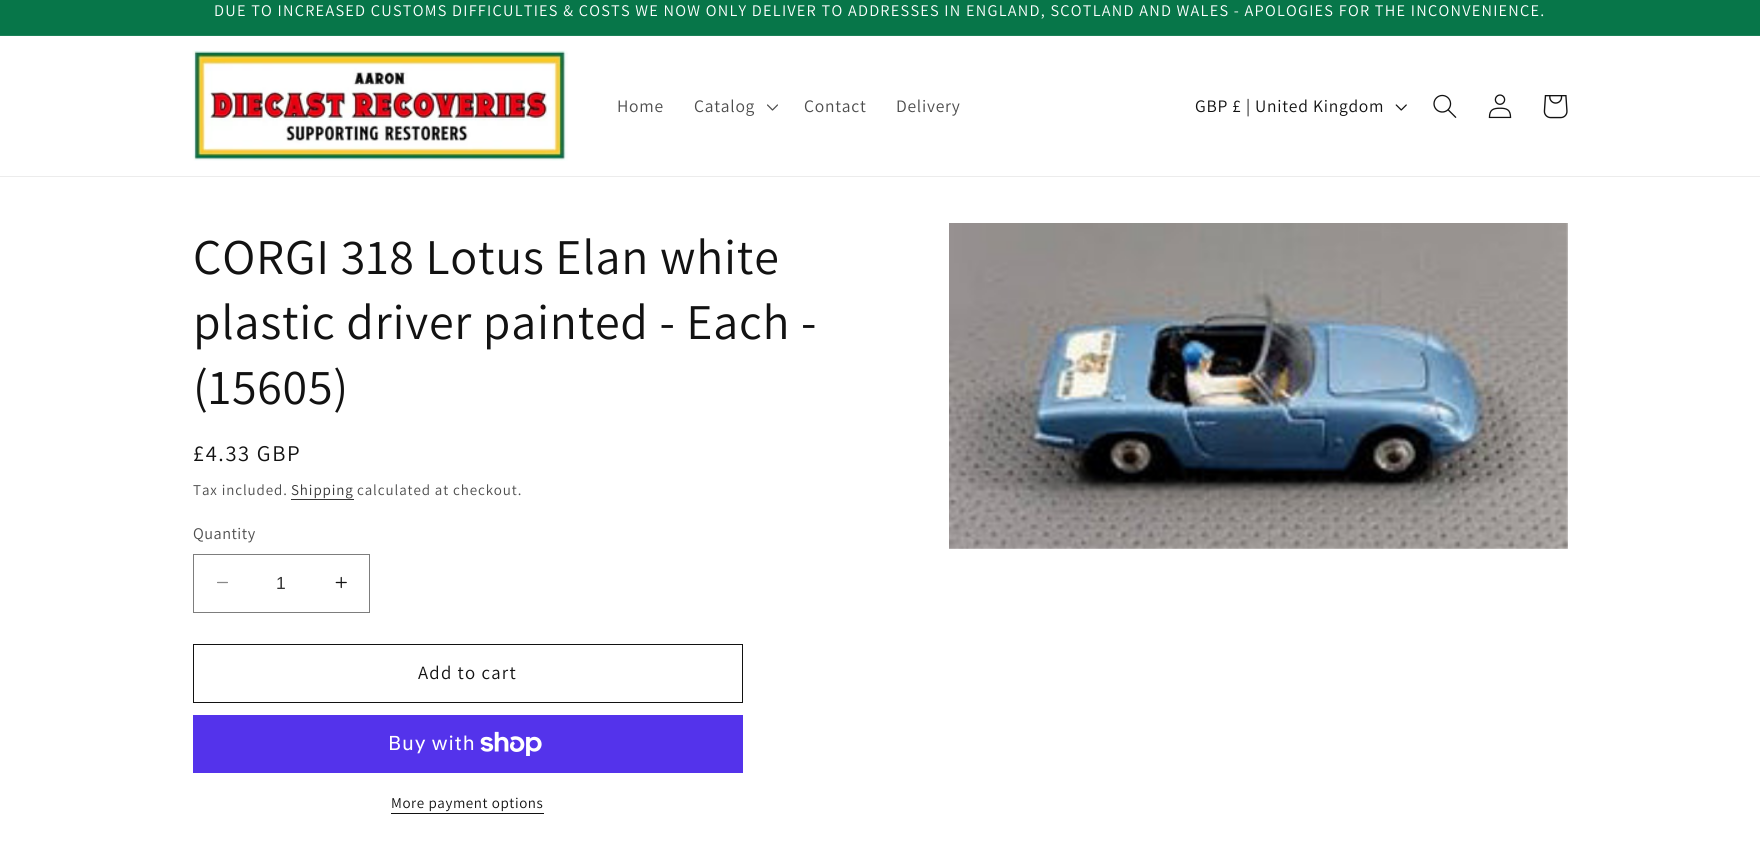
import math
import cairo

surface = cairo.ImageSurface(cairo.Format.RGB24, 1760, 846)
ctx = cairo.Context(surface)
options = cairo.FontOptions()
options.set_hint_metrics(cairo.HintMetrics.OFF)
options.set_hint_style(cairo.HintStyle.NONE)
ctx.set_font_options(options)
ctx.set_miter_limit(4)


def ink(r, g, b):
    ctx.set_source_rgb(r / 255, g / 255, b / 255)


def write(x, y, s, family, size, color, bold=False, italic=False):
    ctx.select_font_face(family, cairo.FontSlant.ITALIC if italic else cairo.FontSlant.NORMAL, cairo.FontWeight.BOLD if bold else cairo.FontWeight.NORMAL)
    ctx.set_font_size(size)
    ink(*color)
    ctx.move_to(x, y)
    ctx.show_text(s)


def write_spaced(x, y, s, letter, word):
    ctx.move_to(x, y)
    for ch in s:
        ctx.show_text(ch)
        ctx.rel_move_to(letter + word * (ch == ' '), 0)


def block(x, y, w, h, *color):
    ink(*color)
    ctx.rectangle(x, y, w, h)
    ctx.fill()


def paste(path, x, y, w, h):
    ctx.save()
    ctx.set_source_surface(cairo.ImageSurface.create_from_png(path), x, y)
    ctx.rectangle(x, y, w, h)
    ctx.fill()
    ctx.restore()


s1 = dict(family="Liberation Sans", size=17.5, color=(54, 54, 54))

ink(255, 255, 255)
ctx.paint()
block(0, 0, 1760, 35, 7, 118, 73)
block(0, 35, 1760, 1, 27, 129, 88)
ctx.select_font_face("Assistant")
ctx.set_font_size(16.25)
ink(255, 255, 255)
write_spaced(214, 16, "DUE TO INCREASED CUSTOMS DIFFICULTIES & COSTS WE NOW ONLY DELIVER TO ADDRESSES IN ENGLAND, SCOTLAND AND WALES - APOLOGIES FOR THE INCONVENIENCE.", 1.25, 0)
block(0, 176, 1760, 1, 236, 236, 236)
paste("pic1.png", 192, 50, 376, 111)
ctx.set_font_size(17.5)
ink(77, 77, 77)
write_spaced(617, 112, "Home", 0.75, 0)
write_spaced(694, 112, "Catalog", 0.75, 0)
paste("pic2.png", 767, 104, 11, 7)
write_spaced(804, 112, "Contact", 0.75, 0)
write_spaced(896, 112, "Delivery", 0.75, 0)
ink(18, 18, 18)
write_spaced(1195, 112, "GBP £ | United Kingdom", 0.75, 0)
paste("pic3.png", 1395, 104, 12, 7)
paste("pic4.png", 1433, 94, 24, 24)
paste("pic5.png", 1488, 94, 24, 25)
paste("pic6.png", 1543, 95, 25, 24)
ctx.set_font_size(50)
write_spaced(193, 274, "CORGI 318 Lotus Elan white", 0.75, 0)
write_spaced(193, 339, "plastic driver painted - Each -", 0.75, 0)
write_spaced(193, 404, "(15605)", 0.75, 0)
ctx.set_font_size(22.5)
write_spaced(193, 461, "£4.33 GBP", 1.6, 0)
ctx.set_font_size(15)
ink(77, 77, 77)
write_spaced(193, 495, "Tax included.", 0.9, 0)
ink(54, 54, 54)
write_spaced(291, 495, "Shipping", 0.9, 0)
block(291, 499, 63, 1, 54, 54, 54)
ink(77, 77, 77)
write_spaced(357, 495, "calculated at checkout.", 0.9, 0)
ctx.set_font_size(16.25)
write_spaced(193, 539, "Quantity", 0.5, 0)
paste("pic7.png", 217, 581, 11, 3)
paste("pic8.png", 335, 576, 12, 13)
ctx.rectangle(193.5, 554.5, 176, 58)
ink(125, 125, 125)
ctx.set_line_width(1)
ctx.stroke()
write(276, 589, "1", **s1)
ctx.rectangle(193.5, 644.5, 549, 58)
ink(18, 18, 18)
ctx.stroke()
ctx.select_font_face("Assistant")
ctx.set_font_size(18.75)
write_spaced(418, 679, "Add to cart", 1.25, 0)
block(193, 715, 550, 58, 84, 51, 235)
ctx.select_font_face("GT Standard")
ctx.set_font_size(20)
ink(255, 255, 255)
write_spaced(388, 750, "Buy with", 0.75, 0)
paste("pic9.png", 480, 731, 62, 25)
ctx.select_font_face("Assistant")
ctx.set_font_size(15)
ink(18, 18, 18)
write_spaced(391, 808, "More payment options", 0.6, 0)
block(391, 813, 153, 1, 18, 18, 18)
paste("pic10.png", 949, 223, 619, 326)
surface.write_to_png("screenshot.png")
